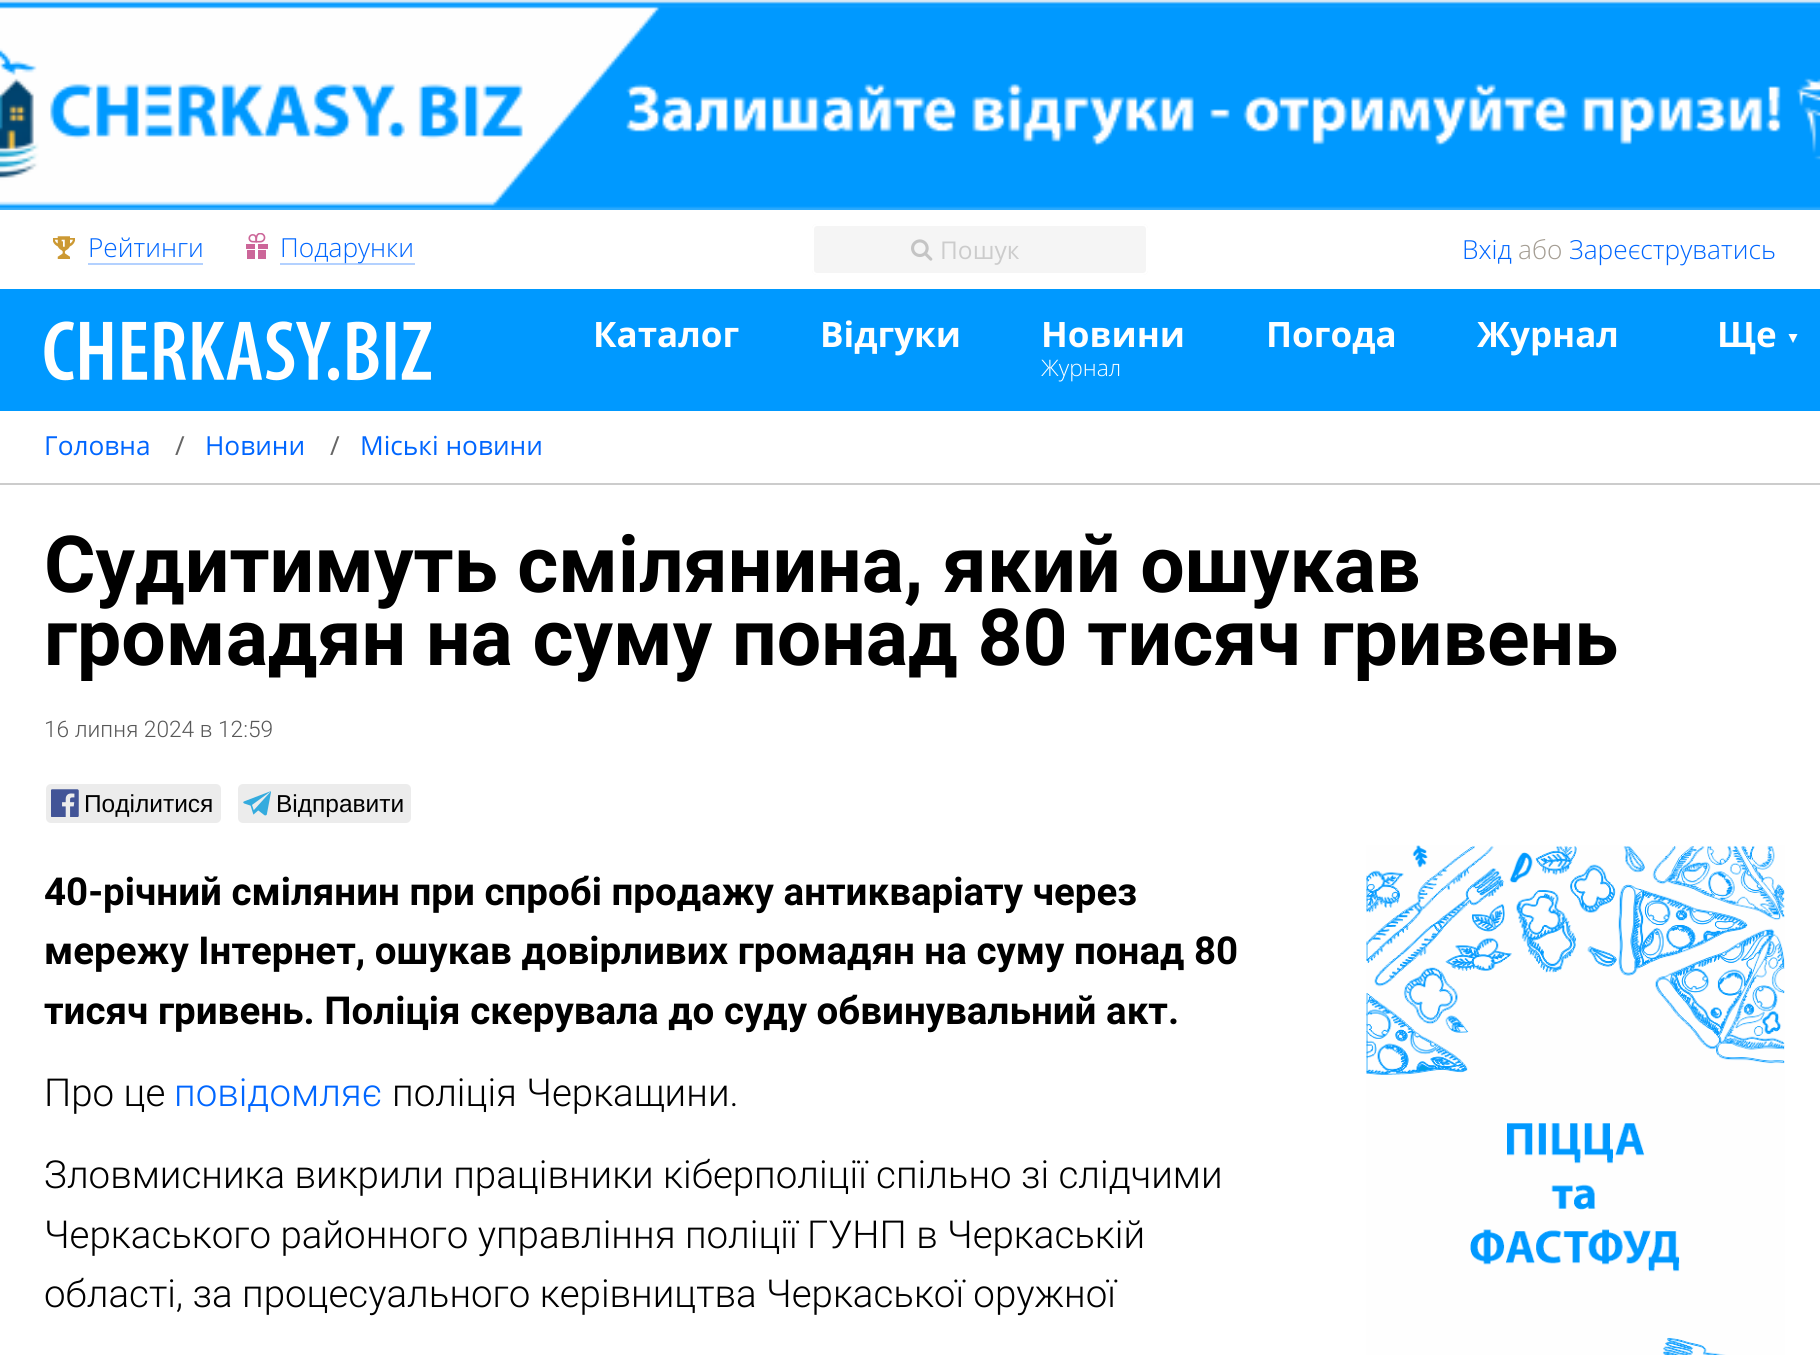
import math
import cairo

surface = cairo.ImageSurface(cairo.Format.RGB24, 1820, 1355)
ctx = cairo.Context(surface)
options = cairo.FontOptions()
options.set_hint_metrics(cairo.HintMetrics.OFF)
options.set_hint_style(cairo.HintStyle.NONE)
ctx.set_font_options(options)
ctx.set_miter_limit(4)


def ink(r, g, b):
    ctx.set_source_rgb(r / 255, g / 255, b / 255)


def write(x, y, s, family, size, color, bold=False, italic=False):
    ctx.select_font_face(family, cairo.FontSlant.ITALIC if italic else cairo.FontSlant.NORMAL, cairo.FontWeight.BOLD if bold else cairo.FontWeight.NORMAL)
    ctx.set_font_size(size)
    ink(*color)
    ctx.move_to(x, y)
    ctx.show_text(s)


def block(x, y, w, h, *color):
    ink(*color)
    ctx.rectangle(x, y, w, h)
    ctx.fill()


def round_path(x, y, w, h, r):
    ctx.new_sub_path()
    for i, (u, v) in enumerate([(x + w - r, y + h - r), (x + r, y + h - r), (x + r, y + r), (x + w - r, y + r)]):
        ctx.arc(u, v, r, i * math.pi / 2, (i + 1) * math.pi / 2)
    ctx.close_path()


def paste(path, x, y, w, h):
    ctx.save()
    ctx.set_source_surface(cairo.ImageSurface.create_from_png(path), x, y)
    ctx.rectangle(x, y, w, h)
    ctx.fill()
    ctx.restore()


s1 = dict(family="Open Sans Light", size=26.25, color=(0, 102, 255))
s2 = dict(family="Open Sans", size=24.5, color=(204, 204, 204))
s3 = dict(family="Open Sans Light", size=26.25, color=(164, 157, 147))
s4 = dict(family="Open Sans", size=35, color=(255, 255, 255), bold=True)
s5 = dict(family="Open Sans Light", size=22.75, color=(255, 255, 255))
s6 = dict(family="Open Sans", size=26.25, color=(0, 102, 255))
s7 = dict(family="Open Sans", size=26.25, color=(102, 102, 102))
s8 = dict(family="Roboto", size=78.75, color=(0, 0, 0), bold=True)
s9 = dict(family="Roboto Light", size=22.75, color=(88, 88, 88))
s10 = dict(family="Liberation Sans", size=24.5, color=(0, 0, 0))
s11 = dict(family="Roboto", size=38.5, color=(0, 0, 0), bold=True)
s12 = dict(family="Roboto Light", size=38.5, color=(0, 0, 0))
s13 = dict(family="Roboto Light", size=38.5, color=(0, 102, 255))

ink(244, 244, 244)
ctx.paint()
paste("pic1.png", 0, 0, 1820, 210)
block(0, 210, 1820, 79, 255, 255, 255)
block(88, 263, 115, 2, 179, 209, 255)
paste("pic2.png", 53, 236, 22, 23)
write(88, 257, "Рейтинги", **s1)
block(280, 263, 135, 2, 179, 209, 255)
paste("pic3.png", 246, 233, 22, 26)
write(280, 257, "Подарунки", **s1)
ink(245, 245, 245)
round_path(812, 224, 336, 51, 5)
ctx.fill()
paste("pic4.png", 911, 239, 22, 22)
round_path(813, 225, 334, 49, 4)
ink(255, 255, 255)
ctx.stroke()
write(940, 259, "Пошук", **s2)
write(1462, 259, "Вхід", **s1)
write(1518, 259, "або", **s3)
write(1569, 259, "Зареєструватись", **s1)
block(0, 289, 1820, 122, 0, 153, 255)
paste("pic5.png", 44, 321, 388, 60)
write(593, 347, "Каталог", **s4)
write(820, 347, "Відгуки", **s4)
write(1041, 347, "Новини", **s4)
write(1041, 376, "Журнал", **s5)
write(1266, 347, "Погода", **s4)
write(1477, 347, "Журнал", **s4)
write(1717, 347, "Ще", **s4)
ctx.set_fill_rule(cairo.FillRule.EVEN_ODD)
ctx.new_path()
ctx.move_to(1793, 343)
ctx.line_to(1797.5, 334)
ctx.line_to(1788.5, 334)
ctx.close_path()
ctx.fill()
block(0, 411, 1820, 72, 255, 255, 255)
block(0, 483, 1820, 2, 204, 204, 204)
write(44, 455, "Головна", **s6)
write(175, 455, "/", **s7)
write(205, 455, "Новини", **s6)
write(330, 455, "/", **s7)
write(360, 455, "Міські новини", **s6)
block(0, 485, 1820, 870, 255, 255, 255)
write(44, 592, "Судитимуть смілянина, який ошукав", **s8)
write(44, 665, "громадян на суму понад 80 тисяч гривень", **s8)
write(44, 737, "16 липня 2024 в 12:59", **s9)
ink(236, 236, 236)
round_path(46, 784, 175, 39, 5)
ctx.fill()
paste("pic6.png", 51, 789, 28, 28)
write(84, 812, "Поділитися", **s10)
ink(236, 236, 236)
round_path(238, 784, 173, 39, 5)
ctx.fill()
paste("pic7.png", 243, 791, 28, 25)
write(276, 812, "Відправити", **s10)
write(44, 905, "40-річний смілянин при спробі продажу антикваріату через", **s11)
write(44, 964, "мережу Інтернет, ошукав довірливих громадян на суму понад 80", **s11)
write(44, 1024, "тисяч гривень. Поліція скерувала до суду обвинувальний акт.", **s11)
write(44, 1106, "Про це", **s12)
write(174, 1106, "повідомляє", **s13)
write(392, 1106, "поліція Черкащини.", **s12)
write(44, 1188, "Зловмисника викрили працівники кіберполіції спільно зі слідчими", **s12)
write(44, 1248, "Черкаського районного управління поліції ГУНП в Черкаській", **s12)
write(44, 1307, "області, за процесуального керівництва Черкаської оружної", **s12)
paste("pic8.png", 1366, 845, 419, 510)
surface.write_to_png("screenshot.png")
